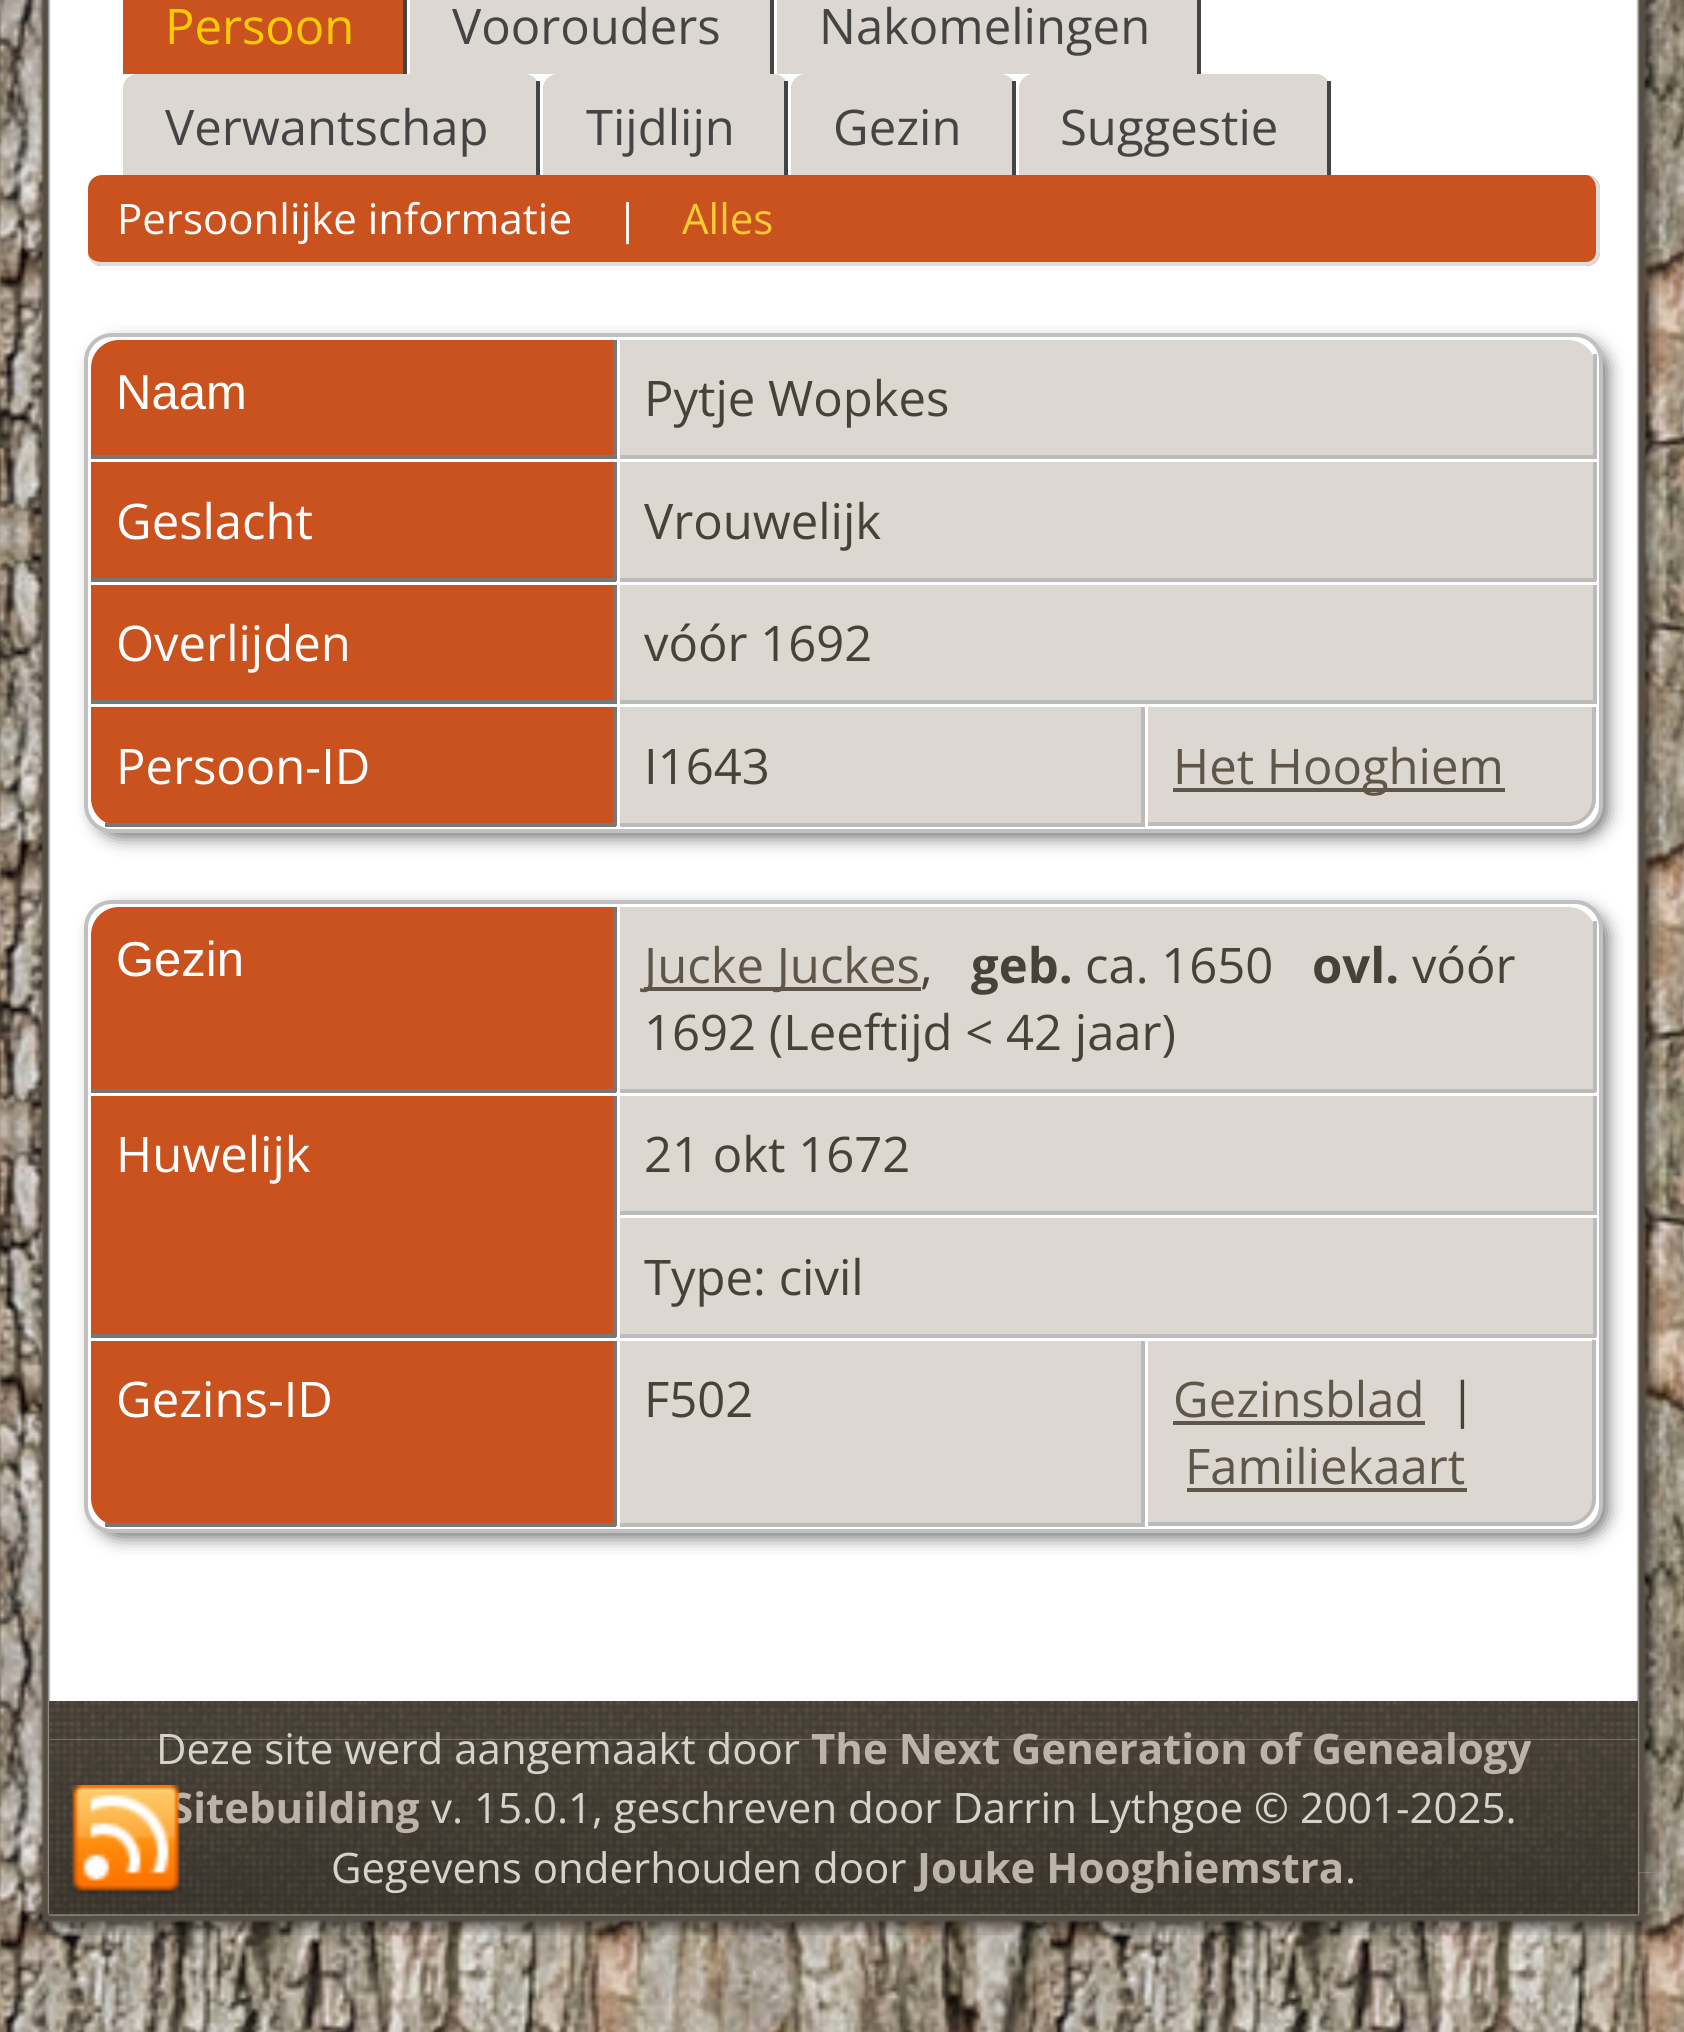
import math
import cairo

surface = cairo.ImageSurface(cairo.Format.RGB24, 1684, 2032)
ctx = cairo.Context(surface)
options = cairo.FontOptions()
options.set_hint_metrics(cairo.HintMetrics.OFF)
options.set_hint_style(cairo.HintStyle.NONE)
ctx.set_font_options(options)
ctx.set_miter_limit(4)


def ink(r, g, b):
    ctx.set_source_rgb(r / 255, g / 255, b / 255)


def write(x, y, s, family, size, color, bold=False, italic=False):
    ctx.select_font_face(family, cairo.FontSlant.ITALIC if italic else cairo.FontSlant.NORMAL, cairo.FontWeight.BOLD if bold else cairo.FontWeight.NORMAL)
    ctx.set_font_size(size)
    ink(*color)
    ctx.move_to(x, y)
    ctx.show_text(s)


def block(x, y, w, h, *color):
    ink(*color)
    ctx.rectangle(x, y, w, h)
    ctx.fill()


def round_path(x, y, w, h, r):
    ctx.new_sub_path()
    for i, (u, v) in enumerate([(x + w - r, y + h - r), (x + r, y + h - r), (x + r, y + r), (x + w - r, y + r)]):
        ctx.arc(u, v, r, i * math.pi / 2, (i + 1) * math.pi / 2)
    ctx.close_path()


def blur_box(x, y, w, h, r, blur, alpha):
    ctx.push_group_with_content(cairo.Content.ALPHA)
    ctx.set_operator(cairo.Operator.SOURCE)
    for i in range(15, -16, -2):
        e = blur * i / 6
        if min(w, h) + 2 * e > 0:
            ctx.set_source_rgba(0, 0, 0, alpha * math.erfc((i - 1) / 8.5) / 2)
            round_path(x - e, y - e, w + 2 * e, h + 2 * e, max(0, min(r + e + blur * .6, min(w, h) / 2 + e)))
            ctx.fill()
    ctx.mask(ctx.pop_group())


def paste(path, x, y, w, h):
    ctx.save()
    ctx.set_source_surface(cairo.ImageSurface.create_from_png(path), x, y)
    ctx.rectangle(x, y, w, h)
    ctx.fill()
    ctx.restore()


s1 = dict(family="Open Sans", size=49, color=(255, 204, 0))
s2 = dict(family="Open Sans", size=49, color=(68, 68, 68))
s3 = dict(family="Open Sans", size=42, color=(255, 255, 255))
s4 = dict(family="Open Sans", size=42, color=(255, 204, 51))
s5 = dict(family="Liberation Sans", size=49, color=(255, 255, 255))
s6 = dict(family="Open Sans", size=49, color=(72, 65, 55))
s7 = dict(family="Open Sans", size=49, color=(255, 255, 255))
s8 = dict(family="Open Sans", size=49, color=(95, 86, 73))
s9 = dict(family="Open Sans", size=49, color=(72, 65, 55), bold=True)
s10 = dict(family="Open Sans", size=42, color=(188, 180, 169), bold=True)
s11 = dict(family="Open Sans", size=42, color=(215, 210, 203))

ink(255, 255, 255)
ctx.paint()
paste("pic1.png", 0, 0, 1684, 2032)
paste("pic7.png", 38, 1872, 53, 63)
paste("pic2.png", 37, 0, 54, 1873)
block(91, 0, 1505, 1740, 255, 255, 255)
paste("pic9.png", 1596, 1872, 63, 64)
paste("pic3.png", 1596, 0, 63, 1873)
block(123, 0, 280, 74, 202, 82, 30)
block(403, 0, 4, 74, 68, 68, 68)
write(165, 44, "Persoon", **s1)
block(410, 0, 360, 74, 220, 215, 209)
block(770, 0, 4, 74, 68, 68, 68)
write(452, 44, "Voorouders", **s2)
block(777, 0, 420, 74, 220, 215, 209)
block(1197, 0, 4, 74, 68, 68, 68)
write(819, 44, "Nakomelingen", **s2)
ink(220, 215, 209)
ctx.new_path()
ctx.move_to(137, 74)
ctx.line_to(525, 74)
ctx.curve_to(532.5, 74, 539, 80.5, 539, 88)
ctx.line_to(539, 175)
ctx.line_to(123, 175)
ctx.line_to(123, 88)
ctx.curve_to(123, 80.5, 129.5, 74, 137, 74)
ctx.close_path()
ctx.fill()
block(536, 81, 4, 94, 68, 68, 68)
write(165, 145, "Verwantschap", **s2)
ink(220, 215, 209)
ctx.new_path()
ctx.move_to(557, 74)
ctx.line_to(774, 74)
ctx.curve_to(781.5, 74, 788, 80.5, 788, 88)
ctx.line_to(788, 175)
ctx.line_to(543, 175)
ctx.line_to(543, 88)
ctx.curve_to(543, 80.5, 549.5, 74, 557, 74)
ctx.close_path()
ctx.fill()
block(784, 81, 4, 94, 68, 68, 68)
write(586, 145, "Tijdlijn", **s2)
ink(220, 215, 209)
ctx.new_path()
ctx.move_to(805, 74)
ctx.line_to(1001, 74)
ctx.curve_to(1008.5, 74, 1015, 80.5, 1015, 88)
ctx.line_to(1015, 175)
ctx.line_to(791, 175)
ctx.line_to(791, 88)
ctx.curve_to(791, 80.5, 797.5, 74, 805, 74)
ctx.close_path()
ctx.fill()
block(1012, 81, 4, 94, 68, 68, 68)
write(833, 145, "Gezin", **s2)
ink(220, 215, 209)
ctx.new_path()
ctx.move_to(1033, 74)
ctx.line_to(1316, 74)
ctx.curve_to(1323.5, 74, 1330, 80.5, 1330, 88)
ctx.line_to(1330, 175)
ctx.line_to(1019, 175)
ctx.line_to(1019, 88)
ctx.curve_to(1019, 80.5, 1025.5, 74, 1033, 74)
ctx.close_path()
ctx.fill()
block(1327, 81, 4, 94, 68, 68, 68)
write(1060, 145, "Suggestie", **s2)
ink(202, 82, 30)
round_path(88, 175, 1512, 91, 14)
ctx.fill()
ink(221, 221, 221)
ctx.set_fill_rule(cairo.FillRule.EVEN_ODD)
ctx.new_path()
ctx.move_to(102, 175)
ctx.line_to(1586, 175)
ctx.curve_to(1593, 175, 1600, 181, 1600, 189)
ctx.line_to(1600, 252)
ctx.curve_to(1600, 260, 1593, 266, 1586, 266)
ctx.line_to(102, 266)
ctx.curve_to(94, 266, 88, 260, 88, 252)
ctx.line_to(88, 189)
ctx.curve_to(88, 181, 94, 175, 102, 175)
ctx.close_path()
ctx.move_to(102, 175)
ctx.line_to(1586, 175)
ctx.curve_to(1591, 175, 1596, 181, 1596, 189)
ctx.line_to(1596, 252)
ctx.curve_to(1596, 258, 1591, 262, 1586, 262)
ctx.line_to(102, 262)
ctx.curve_to(94, 262, 88, 258, 88, 252)
ctx.line_to(88, 189)
ctx.curve_to(88, 181, 94, 175, 102, 175)
ctx.close_path()
ctx.fill()
write(117, 234, "Persoonlijke informatie", **s3)
write(616, 234, "|", **s3)
write(682, 234, "Alles", **s4)
ink(102, 102, 102)
blur_box(95, 343, 1512, 494, 25, 9, 1)
ink(255, 255, 255)
round_path(86, 335, 1515, 496, 26)
ctx.fill_preserve()
ink(192, 192, 192)
ctx.set_line_width(4)
ctx.stroke()
ink(202, 82, 30)
ctx.new_path()
ctx.move_to(119, 340)
ctx.line_to(616, 340)
ctx.line_to(616, 459)
ctx.line_to(91, 459)
ctx.line_to(91, 368)
ctx.curve_to(91, 352.5, 103.5, 340, 119, 340)
ctx.close_path()
ctx.fill()
block(613, 340, 4, 119, 119, 119, 119)
block(91, 455, 525, 4, 119, 119, 119)
write(116, 409, "Naam", **s5)
ink(220, 215, 209)
ctx.new_path()
ctx.move_to(620, 340)
ctx.line_to(1568, 340)
ctx.curve_to(1583.5, 340, 1596, 352.5, 1596, 368)
ctx.line_to(1596, 459)
ctx.line_to(620, 459)
ctx.close_path()
ctx.fill()
block(1593, 354, 4, 105, 187, 187, 187)
block(620, 455, 976, 4, 187, 187, 187)
write(644, 416, "Pytje Wopkes", **s6)
block(91, 462, 522, 116, 202, 82, 30)
block(613, 462, 4, 119, 119, 119, 119)
block(91, 578, 525, 4, 119, 119, 119)
write(116, 539, "Geslacht", **s7)
block(620, 462, 973, 116, 220, 215, 209)
block(1593, 462, 4, 119, 187, 187, 187)
block(620, 578, 976, 4, 187, 187, 187)
write(644, 539, "Vrouwelijk", **s6)
block(91, 585, 522, 115, 202, 82, 30)
block(613, 585, 4, 119, 119, 119, 119)
block(91, 700, 525, 4, 119, 119, 119)
write(116, 661, "Overlijden", **s7)
block(620, 585, 973, 115, 220, 215, 209)
block(1593, 585, 4, 119, 187, 187, 187)
block(620, 700, 976, 4, 187, 187, 187)
write(644, 661, "vóór 1692", **s6)
ink(202, 82, 30)
ctx.new_path()
ctx.move_to(91, 707)
ctx.line_to(616, 707)
ctx.line_to(616, 826)
ctx.line_to(119, 826)
ctx.curve_to(103.5, 826, 91, 813.5, 91, 798)
ctx.close_path()
ctx.fill()
block(613, 707, 4, 119, 119, 119, 119)
block(105, 823, 511, 4, 119, 119, 119)
write(116, 784, "Persoon-ID", **s7)
block(620, 707, 521, 116, 220, 215, 209)
block(1141, 707, 4, 119, 187, 187, 187)
block(620, 823, 525, 4, 187, 187, 187)
write(644, 784, "I1643", **s6)
ink(220, 215, 209)
ctx.new_path()
ctx.move_to(1148, 707)
ctx.line_to(1596, 707)
ctx.line_to(1596, 798)
ctx.curve_to(1596, 813.5, 1583.5, 826, 1568, 826)
ctx.line_to(1148, 826)
ctx.close_path()
ctx.fill()
ink(187, 187, 187)
ctx.new_path()
ctx.move_to(1148, 707)
ctx.line_to(1596, 707)
ctx.line_to(1596, 798)
ctx.curve_to(1596, 813, 1583, 826, 1568, 826)
ctx.line_to(1148, 826)
ctx.close_path()
ctx.move_to(1148, 707)
ctx.line_to(1592, 707)
ctx.line_to(1592, 798)
ctx.curve_to(1592, 812, 1582, 822, 1568, 822)
ctx.line_to(1148, 822)
ctx.close_path()
ctx.fill()
block(1173, 788, 332, 4, 95, 86, 73)
write(1173, 784, "Het Hooghiem", **s8)
ink(102, 102, 102)
blur_box(95, 910, 1512, 627, 25, 9, 1)
ink(255, 255, 255)
round_path(86, 902, 1515, 629, 26)
ctx.fill_preserve()
ink(192, 192, 192)
ctx.stroke()
ink(202, 82, 30)
ctx.new_path()
ctx.move_to(119, 907)
ctx.line_to(616, 907)
ctx.line_to(616, 1092)
ctx.line_to(91, 1092)
ctx.line_to(91, 935)
ctx.curve_to(91, 919.5, 103.5, 907, 119, 907)
ctx.close_path()
ctx.fill()
block(613, 907, 4, 185, 119, 119, 119)
block(91, 1089, 525, 4, 119, 119, 119)
write(116, 976, "Gezin", **s5)
ink(220, 215, 209)
ctx.new_path()
ctx.move_to(620, 907)
ctx.line_to(1568, 907)
ctx.curve_to(1583.5, 907, 1596, 919.5, 1596, 935)
ctx.line_to(1596, 1092)
ctx.line_to(620, 1092)
ctx.close_path()
ctx.fill()
block(1593, 921, 4, 171, 187, 187, 187)
block(620, 1089, 976, 4, 187, 187, 187)
block(644, 987, 277, 4, 95, 86, 73)
write(644, 983, "Jucke Juckes", **s8)
write(920, 983, ",", **s6)
write(971, 983, "geb.", **s9)
write(1085, 983, "ca. 1650", **s6)
write(1312, 983, "ovl.", **s9)
write(1412, 983, "vóór", **s6)
write(644, 1050, "1692 (Leeftijd < 42 jaar)", **s6)
block(91, 1096, 522, 238, 202, 82, 30)
block(613, 1096, 4, 241, 119, 119, 119)
block(91, 1334, 525, 4, 119, 119, 119)
write(116, 1172, "Huwelijk", **s7)
block(620, 1096, 973, 115, 220, 215, 209)
block(1593, 1096, 4, 119, 187, 187, 187)
block(620, 1211, 976, 4, 187, 187, 187)
write(644, 1172, "21 okt 1672", **s6)
block(620, 1218, 973, 116, 220, 215, 209)
block(1593, 1218, 4, 119, 187, 187, 187)
block(620, 1334, 976, 4, 187, 187, 187)
write(644, 1295, "Type: civil", **s6)
ink(202, 82, 30)
ctx.new_path()
ctx.move_to(91, 1341)
ctx.line_to(616, 1341)
ctx.line_to(616, 1526)
ctx.line_to(119, 1526)
ctx.curve_to(103.5, 1526, 91, 1513.5, 91, 1498)
ctx.close_path()
ctx.fill()
block(613, 1341, 4, 185, 119, 119, 119)
block(105, 1523, 511, 4, 119, 119, 119)
write(116, 1417, "Gezins-ID", **s7)
block(620, 1341, 521, 182, 220, 215, 209)
block(1141, 1341, 4, 185, 187, 187, 187)
block(620, 1523, 525, 4, 187, 187, 187)
write(644, 1417, "F502", **s6)
ink(220, 215, 209)
ctx.new_path()
ctx.move_to(1148, 1341)
ctx.line_to(1596, 1341)
ctx.line_to(1596, 1498)
ctx.curve_to(1596, 1513.5, 1583.5, 1526, 1568, 1526)
ctx.line_to(1148, 1526)
ctx.close_path()
ctx.fill()
ink(187, 187, 187)
ctx.new_path()
ctx.move_to(1148, 1340)
ctx.line_to(1596, 1340)
ctx.line_to(1596, 1498)
ctx.curve_to(1596, 1513, 1583, 1526, 1568, 1526)
ctx.line_to(1148, 1526)
ctx.close_path()
ctx.move_to(1148, 1340)
ctx.line_to(1592, 1340)
ctx.line_to(1592, 1498)
ctx.curve_to(1592, 1512, 1582, 1522, 1568, 1522)
ctx.line_to(1148, 1522)
ctx.close_path()
ctx.fill()
write(1173, 1417, "Gezinsblad", **s8)
block(1173, 1421, 252, 4, 95, 86, 73)
write(1449, 1417, "|", **s6)
write(1185, 1484, "Familiekaart", **s8)
block(1187, 1488, 280, 4, 95, 86, 73)
paste("pic4.png", 49, 1701, 1589, 39)
paste("pic8.png", 91, 1914, 1505, 22)
paste("pic6.png", 49, 1739, 1589, 176)
write(170, 1823, "Sitebuilding", **s10)
paste("pic5.png", 70, 1785, 112, 109)
write(156, 1764, "Deze site werd aangemaakt door", **s11)
write(811, 1764, "The Next Generation of Genealogy", **s10)
write(431, 1823, "v. 15.0.1, geschreven door Darrin Lythgoe © 2001-2025.", **s11)
write(331, 1883, "Gegevens onderhouden door", **s11)
write(917, 1883, "Jouke Hooghiemstra", **s10)
write(1345, 1883, ".", **s11)
surface.write_to_png("screenshot.png")
